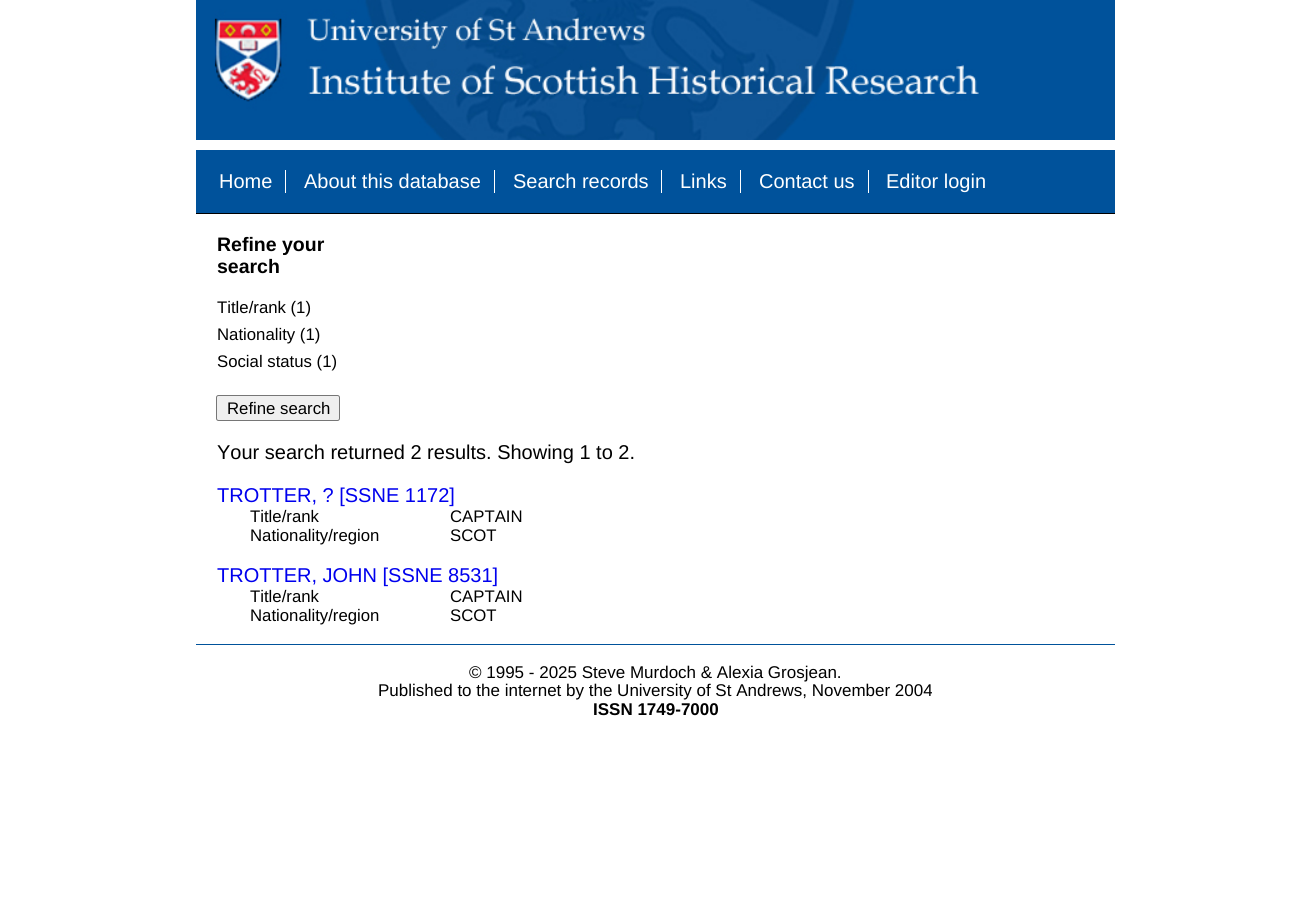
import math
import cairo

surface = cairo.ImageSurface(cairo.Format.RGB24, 1311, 901)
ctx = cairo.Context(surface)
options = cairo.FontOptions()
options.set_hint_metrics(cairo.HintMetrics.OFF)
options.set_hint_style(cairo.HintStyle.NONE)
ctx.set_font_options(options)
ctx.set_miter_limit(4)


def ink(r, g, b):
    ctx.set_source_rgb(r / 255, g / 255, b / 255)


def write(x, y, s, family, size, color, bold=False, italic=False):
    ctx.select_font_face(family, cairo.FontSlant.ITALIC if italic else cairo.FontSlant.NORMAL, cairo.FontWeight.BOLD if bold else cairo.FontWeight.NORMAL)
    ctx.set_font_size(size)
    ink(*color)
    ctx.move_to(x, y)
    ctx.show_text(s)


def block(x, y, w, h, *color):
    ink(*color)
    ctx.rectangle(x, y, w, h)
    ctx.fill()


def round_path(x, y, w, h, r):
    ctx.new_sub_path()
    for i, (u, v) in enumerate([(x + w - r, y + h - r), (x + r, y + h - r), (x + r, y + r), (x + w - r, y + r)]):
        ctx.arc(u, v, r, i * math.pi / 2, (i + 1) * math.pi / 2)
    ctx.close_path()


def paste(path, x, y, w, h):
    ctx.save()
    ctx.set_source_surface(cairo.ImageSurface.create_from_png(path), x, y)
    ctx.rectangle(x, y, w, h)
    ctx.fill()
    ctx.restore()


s1 = dict(family="Liberation Sans", size=20, color=(255, 255, 255))
s2 = dict(family="Liberation Sans", size=19.5, color=(0, 0, 0), bold=True)
s3 = dict(family="Liberation Sans", size=16.75, color=(0, 0, 0))
s4 = dict(family="Liberation Sans", size=20, color=(0, 0, 0))
s5 = dict(family="Liberation Sans", size=20, color=(0, 0, 238))
s6 = dict(family="Liberation Sans", size=17, color=(0, 0, 0))
s7 = dict(family="Liberation Sans", size=17, color=(0, 0, 0), bold=True)

ink(255, 255, 255)
ctx.paint()
block(196, 0, 919, 213, 0, 82, 155)
paste("pic1.png", 214, 0, 765, 140)
block(196, 213, 919, 1, 0, 0, 0)
block(196, 140, 919, 10, 255, 255, 255)
block(285, 170, 1, 23, 255, 255, 255)
write(219, 188, "Home", **s1)
block(494, 170, 1, 23, 255, 255, 255)
write(304, 188, "About this database", **s1)
block(661, 170, 1, 23, 255, 255, 255)
write(513, 188, "Search records", **s1)
block(740, 170, 1, 23, 255, 255, 255)
write(680, 188, "Links", **s1)
block(868, 170, 1, 23, 255, 255, 255)
write(759, 188, "Contact us", **s1)
write(886, 188, "Editor login", **s1)
write(217, 251, "Refine your", **s2)
write(217, 273, "search", **s2)
write(217, 313, "Title/rank (1)", **s3)
write(217, 340, "Nationality (1)", **s3)
write(217, 367, "Social status (1)", **s3)
ink(239, 239, 239)
round_path(216.5, 395.5, 123, 25, 2)
ctx.fill_preserve()
ink(118, 118, 118)
ctx.set_line_width(1)
ctx.stroke()
write(227, 414, "Refine search", **s3)
write(217, 459, "Your search returned 2 results. Showing 1 to 2.", **s4)
write(217, 502, "TROTTER, ? [SSNE 1172]", **s5)
write(250, 522, "Title/rank", **s3)
write(450, 522, "CAPTAIN", **s3)
write(250, 541, "Nationality/region", **s3)
write(450, 541, "SCOT", **s3)
write(217, 582, "TROTTER, JOHN [SSNE 8531]", **s5)
write(250, 602, "Title/rank", **s3)
write(450, 602, "CAPTAIN", **s3)
write(250, 621, "Nationality/region", **s3)
write(450, 621, "SCOT", **s3)
block(196, 644, 919, 1, 0, 82, 155)
write(469, 678, "© 1995 - 2025 Steve Murdoch & Alexia Grosjean.", **s6)
write(378, 696, "Published to the internet by the University of St Andrews, November 2004", **s6)
write(593, 715, "ISSN 1749-7000", **s7)
surface.write_to_png("screenshot.png")
